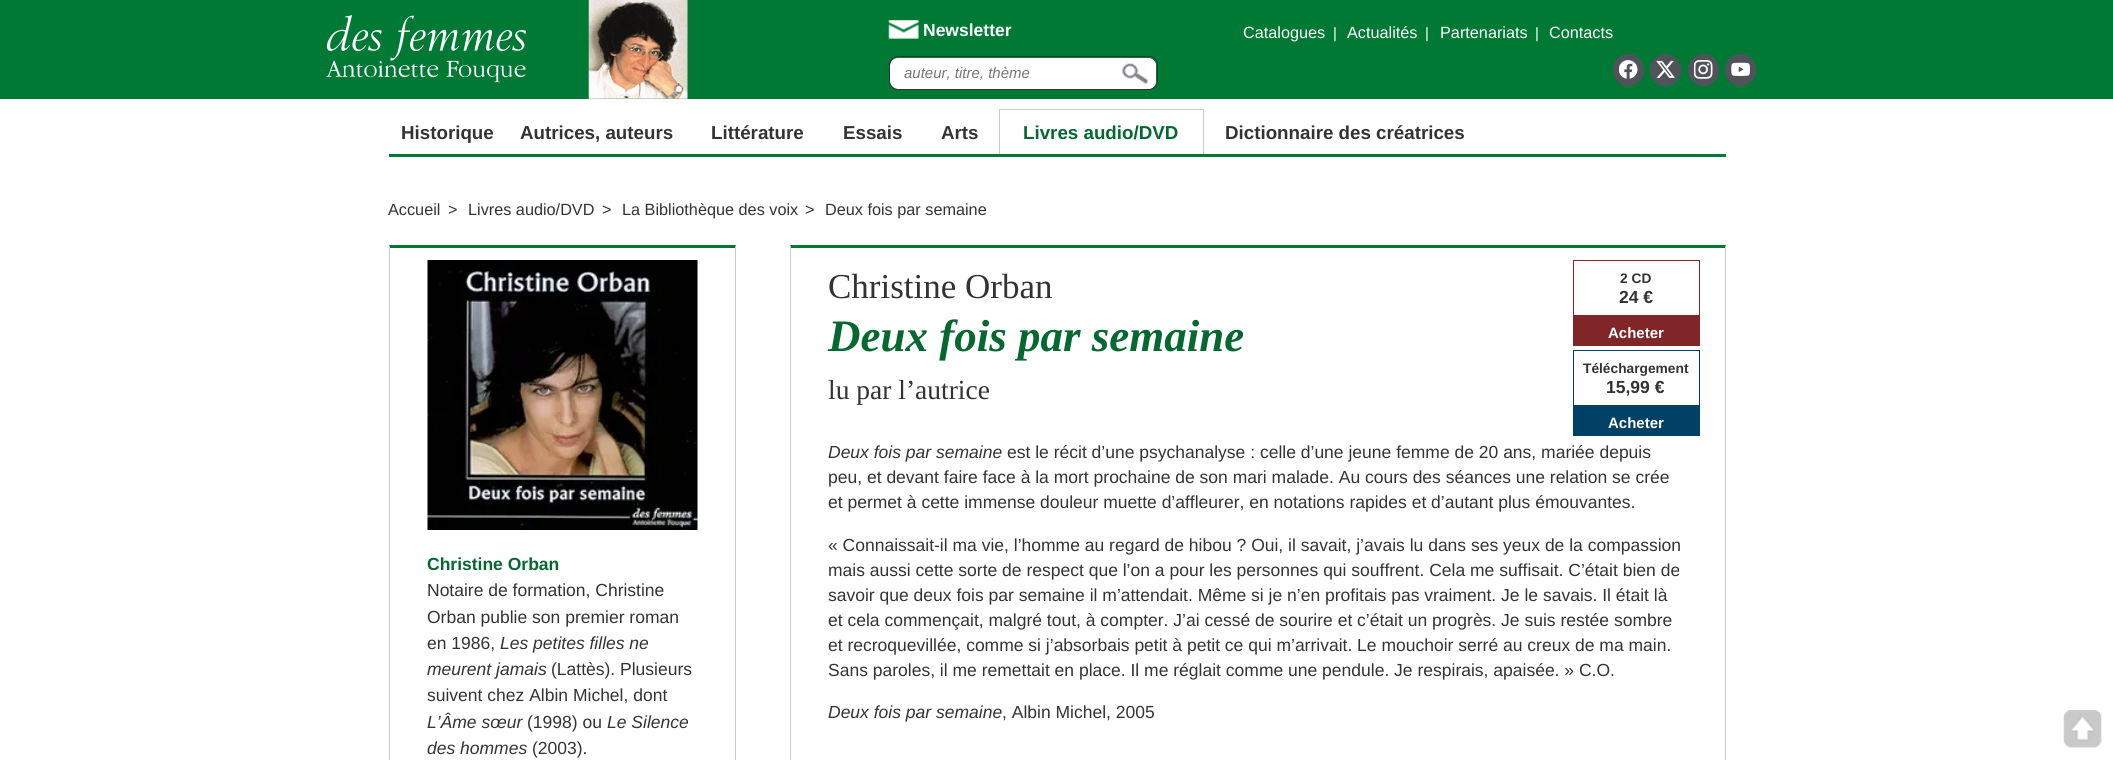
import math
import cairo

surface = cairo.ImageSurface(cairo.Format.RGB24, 2113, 760)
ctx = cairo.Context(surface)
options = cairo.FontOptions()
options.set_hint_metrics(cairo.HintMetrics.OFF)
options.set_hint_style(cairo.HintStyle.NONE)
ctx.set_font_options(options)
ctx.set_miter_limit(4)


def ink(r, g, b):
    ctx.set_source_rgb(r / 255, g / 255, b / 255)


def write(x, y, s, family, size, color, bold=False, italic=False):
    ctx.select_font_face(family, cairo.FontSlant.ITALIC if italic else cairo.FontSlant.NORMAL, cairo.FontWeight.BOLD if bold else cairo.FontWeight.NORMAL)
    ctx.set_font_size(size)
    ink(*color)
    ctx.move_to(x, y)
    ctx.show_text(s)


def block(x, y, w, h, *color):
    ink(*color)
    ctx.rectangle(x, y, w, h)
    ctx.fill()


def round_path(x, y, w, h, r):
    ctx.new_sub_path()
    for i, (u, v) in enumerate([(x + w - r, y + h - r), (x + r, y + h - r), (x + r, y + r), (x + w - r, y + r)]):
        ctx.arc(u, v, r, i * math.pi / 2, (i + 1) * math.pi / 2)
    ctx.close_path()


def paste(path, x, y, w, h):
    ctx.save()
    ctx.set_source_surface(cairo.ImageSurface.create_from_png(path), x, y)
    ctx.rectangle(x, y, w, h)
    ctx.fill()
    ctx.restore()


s1 = dict(family="Liberation Sans", size=17.5, color=(255, 255, 255), bold=True)
s2 = dict(family="Liberation Sans", size=16.25, color=(255, 255, 255))
s3 = dict(family="Liberation Sans", size=15, color=(255, 255, 255))
s4 = dict(family="Liberation Sans", size=15, color=(117, 117, 117), italic=True)
s5 = dict(family="Liberation Sans", size=18.75, color=(51, 51, 51), bold=True)
s6 = dict(family="Liberation Sans", size=18.75, color=(4, 104, 48), bold=True)
s7 = dict(family="Liberation Sans", size=16.25, color=(51, 51, 51))
s8 = dict(family="Liberation Sans", size=17.5, color=(4, 104, 48), bold=True)
s9 = dict(family="Liberation Sans", size=17.5, color=(51, 51, 51))
s10 = dict(family="Liberation Sans", size=17.5, color=(51, 51, 51), italic=True)
s11 = dict(family="Liberation Serif", size=35, color=(51, 51, 51))
s12 = dict(family="Liberation Serif", size=45, color=(4, 104, 48), bold=True, italic=True)
s13 = dict(family="Liberation Serif", size=27.5, color=(51, 51, 51))
s14 = dict(family="Liberation Sans", size=13.75, color=(51, 51, 51), bold=True)
s15 = dict(family="Liberation Sans", size=17.5, color=(51, 51, 51), bold=True)
s16 = dict(family="Liberation Sans", size=15, color=(255, 255, 255), bold=True)

ink(255, 255, 255)
ctx.paint()
block(0, 0, 2113, 99, 0, 121, 53)
paste("pic1.png", 326, 15, 200, 68)
paste("pic2.png", 588, 0, 100, 99)
ink(82, 82, 91)
round_path(1613, 54, 31, 32, 15.5)
ctx.fill()
paste("pic3.png", 1619, 60, 19, 19)
round_path(1650, 54, 31, 32, 15.5)
ctx.fill()
paste("pic4.png", 1656, 60, 19, 18)
round_path(1688, 54, 31, 32, 15.5)
ctx.fill()
paste("pic5.png", 1694, 60, 19, 19)
round_path(1725, 54, 31, 32, 15.5)
ctx.fill()
paste("pic6.png", 1731, 62, 19, 14)
paste("pic7.png", 888, 20, 31, 19)
write(923, 36, "Newsletter", **s1)
write(1243, 38, "Catalogues", **s2)
write(1333, 38, "|", **s3)
write(1347, 38, "Actualités", **s2)
write(1425, 38, "|", **s3)
write(1440, 38, "Partenariats", **s2)
write(1535, 38, "|", **s3)
write(1549, 38, "Contacts", **s2)
round_path(890, 58, 266, 31, 8)
ctx.fill()
round_path(889.5, 56.5, 268, 33, 8.5)
ink(51, 51, 51)
ctx.set_line_width(1)
ctx.stroke()
ink(255, 255, 255)
ctx.new_path()
ctx.move_to(903, 58)
ctx.line_to(1148, 58)
ctx.curve_to(1152.5, 58, 1156, 61.5, 1156, 66)
ctx.line_to(1156, 81)
ctx.curve_to(1156, 85.5, 1152.5, 89, 1148, 89)
ctx.line_to(903, 89)
ctx.close_path()
ctx.fill()
write(904, 78, "auteur, titre, thème", **s4)
paste("pic8.png", 1121, 63, 27, 21)
block(389, 154, 1337, 3, 0, 121, 53)
write(401, 139, "Historique", **s5)
write(520, 139, "Autrices, auteurs", **s5)
write(711, 139, "Littérature", **s5)
write(843, 139, "Essais", **s5)
write(941, 139, "Arts", **s5)
block(999, 109, 205, 1, 204, 204, 204)
block(1203, 109, 1, 45, 204, 204, 204)
block(999, 109, 1, 45, 204, 204, 204)
write(1023, 139, "Livres audio/DVD", **s6)
write(1225, 139, "Dictionnaire des créatrices", **s5)
write(388, 215, "Accueil", **s7)
write(448, 215, ">", **s7)
write(468, 215, "Livres audio/DVD", **s7)
write(602, 215, ">", **s7)
write(622, 215, "La Bibliothèque des voix", **s7)
write(805, 215, ">", **s7)
write(825, 215, "Deux fois par semaine", **s7)
ink(0, 121, 53)
ctx.new_path()
ctx.move_to(389, 245)
ctx.line_to(736, 245)
ctx.line_to(735, 248)
ctx.line_to(390, 248)
ctx.close_path()
ctx.fill()
ink(204, 204, 204)
ctx.new_path()
ctx.move_to(736, 245)
ctx.line_to(736, 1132)
ctx.line_to(735, 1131)
ctx.line_to(735, 248)
ctx.close_path()
ctx.fill()
ctx.new_path()
ctx.move_to(389, 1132)
ctx.line_to(389, 245)
ctx.line_to(390, 248)
ctx.line_to(390, 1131)
ctx.close_path()
ctx.fill()
paste("pic9.png", 427, 260, 271, 270)
write(427, 570, "Christine Orban", **s8)
write(427, 596, "Notaire de formation, Christine", **s9)
write(427, 623, "Orban publie son premier roman", **s9)
write(427, 649, "en 1986,", **s9)
write(500, 649, "Les petites filles ne", **s10)
write(427, 675, "meurent jamais", **s10)
write(551, 675, "(Lattès). Plusieurs", **s9)
write(427, 701, "suivent chez Albin Michel, dont", **s9)
write(427, 728, "L’Âme sœur", **s10)
write(527, 728, "(1998) ou", **s9)
write(607, 728, "Le Silence", **s10)
write(427, 754, "des hommes", **s10)
write(532, 754, "(2003).", **s9)
ink(0, 121, 53)
ctx.new_path()
ctx.move_to(790, 245)
ctx.line_to(1726, 245)
ctx.line_to(1725, 248)
ctx.line_to(791, 248)
ctx.close_path()
ctx.fill()
ink(204, 204, 204)
ctx.new_path()
ctx.move_to(1726, 245)
ctx.line_to(1726, 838)
ctx.line_to(1725, 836)
ctx.line_to(1725, 248)
ctx.close_path()
ctx.fill()
ctx.new_path()
ctx.move_to(790, 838)
ctx.line_to(790, 245)
ctx.line_to(791, 248)
ctx.line_to(791, 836)
ctx.close_path()
ctx.fill()
write(828, 298, "Christine Orban", **s11)
write(828, 351, "Deux fois par semaine", **s12)
write(828, 399, "lu par l’autrice", **s13)
ctx.rectangle(1573.5, 260.5, 126, 85)
ink(128, 38, 41)
ctx.stroke()
write(1620, 283, "2 CD", **s14)
write(1619, 303, "24 €", **s15)
block(1574, 315, 125, 30, 128, 38, 41)
write(1608, 338, "Acheter", **s16)
ctx.rectangle(1573.5, 350.5, 126, 85)
ink(2, 65, 102)
ctx.stroke()
write(1583, 373, "Téléchargement", **s14)
write(1606, 393, "15,99 €", **s15)
block(1574, 405, 125, 30, 2, 65, 102)
write(1608, 428, "Acheter", **s16)
write(828, 458, "Deux fois par semaine", **s10)
write(1007, 458, "est le récit d’une psychanalyse : celle d’une jeune femme de 20 ans, mariée depuis", **s9)
write(828, 483, "peu, et devant faire face à la mort prochaine de son mari malade. Au cours des séances une relation se crée", **s9)
write(828, 508, "et permet à cette immense douleur muette d’affleurer, en notations rapides et d’autant plus émouvantes.", **s9)
write(828, 551, "« Connaissait-il ma vie, l’homme au regard de hibou ? Oui, il savait, j’avais lu dans ses yeux de la compassion", **s9)
write(828, 576, "mais aussi cette sorte de respect que l’on a pour les personnes qui souffrent. Cela me suffisait. C’était bien de", **s9)
write(828, 601, "savoir que deux fois par semaine il m’attendait. Même si je n’en profitais pas vraiment. Je le savais. Il était là", **s9)
write(828, 626, "et cela commençait, malgré tout, à compter. J’ai cessé de sourire et c’était un progrès. Je suis restée sombre", **s9)
write(828, 651, "et recroquevillée, comme si j’absorbais petit à petit ce qui m’arrivait. Le mouchoir serré au creux de ma main.", **s9)
write(828, 676, "Sans paroles, il me remettait en place. Il me réglait comme une pendule. Je respirais, apaisée. » C.O.", **s9)
write(828, 718, "Deux fois par semaine", **s10)
write(1002, 718, ", Albin Michel, 2005", **s9)
paste("pic10.png", 2063, 710, 39, 38)
surface.write_to_png("screenshot.png")
